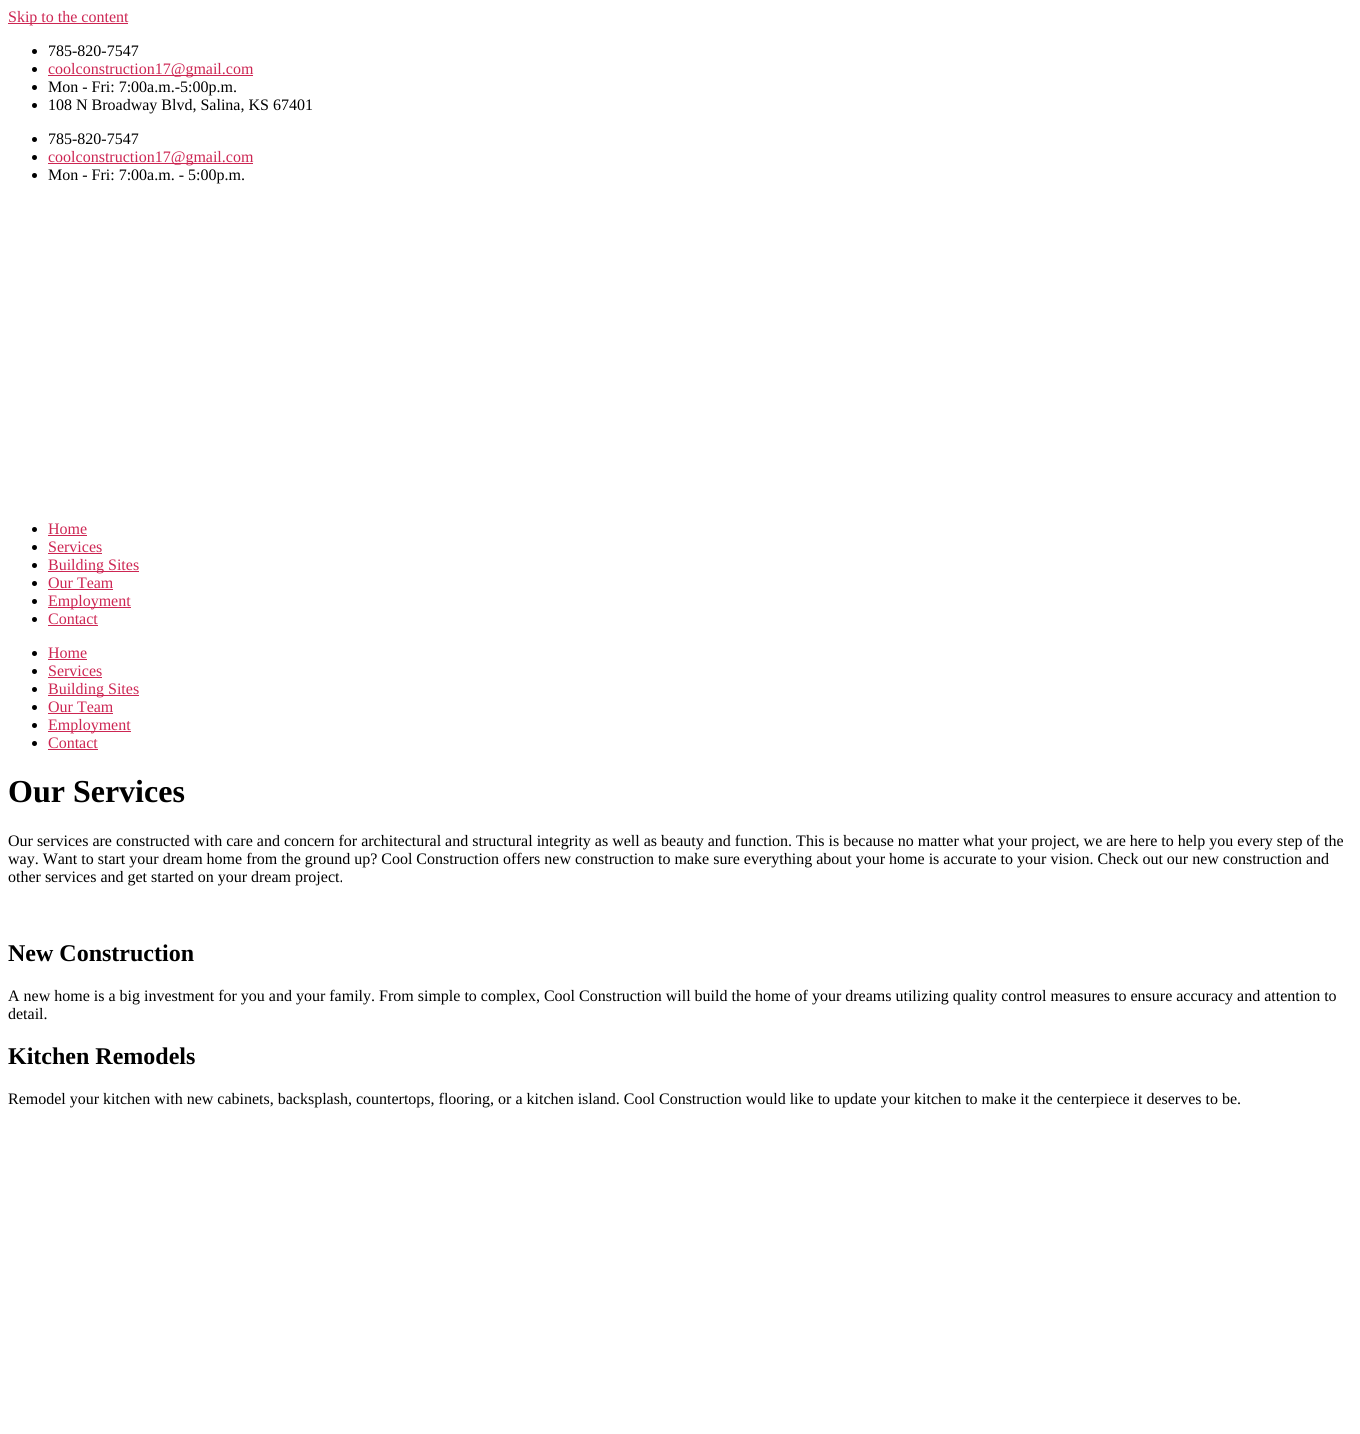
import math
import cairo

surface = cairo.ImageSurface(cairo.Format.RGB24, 1360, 1434)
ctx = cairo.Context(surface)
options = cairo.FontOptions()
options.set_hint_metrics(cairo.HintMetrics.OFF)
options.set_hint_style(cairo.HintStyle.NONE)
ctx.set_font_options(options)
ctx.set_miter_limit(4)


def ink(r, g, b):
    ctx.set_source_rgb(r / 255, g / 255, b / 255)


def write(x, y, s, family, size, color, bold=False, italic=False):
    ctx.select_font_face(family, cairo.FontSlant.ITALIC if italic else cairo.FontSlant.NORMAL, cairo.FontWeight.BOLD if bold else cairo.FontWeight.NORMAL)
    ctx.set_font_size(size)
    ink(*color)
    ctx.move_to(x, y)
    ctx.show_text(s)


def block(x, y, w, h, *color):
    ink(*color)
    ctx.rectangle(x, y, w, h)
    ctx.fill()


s1 = dict(family="Liberation Serif", size=16, color=(205, 38, 83))
s2 = dict(family="Liberation Serif", size=16, color=(0, 0, 0))
s3 = dict(family="Liberation Serif", size=32, color=(0, 0, 0), bold=True)
s4 = dict(family="Liberation Serif", size=24, color=(0, 0, 0), bold=True)

ink(255, 255, 255)
ctx.paint()
block(8, 23, 120, 1, 205, 38, 83)
write(8, 22, "Skip to the content", **s1)
ink(0, 0, 0)
ctx.new_path()
ctx.arc(34.5, 51.5, 2.5, 0, 2 * math.pi)
ctx.fill()
write(48, 56, "785-820-7547", **s2)
ctx.new_path()
ctx.arc(34.5, 69.5, 2.5, 0, 2 * math.pi)
ctx.fill()
block(48, 75, 205, 1, 205, 38, 83)
write(48, 74, "coolconstruction17@gmail.com", **s1)
ink(0, 0, 0)
ctx.new_path()
ctx.arc(34.5, 87.5, 2.5, 0, 2 * math.pi)
ctx.fill()
write(48, 92, "Mon - Fri: 7:00a.m.-5:00p.m.", **s2)
ctx.new_path()
ctx.arc(34.5, 105.5, 2.5, 0, 2 * math.pi)
ctx.fill()
write(48, 110, "108 N Broadway Blvd, Salina, KS 67401", **s2)
ctx.new_path()
ctx.arc(34.5, 139.5, 2.5, 0, 2 * math.pi)
ctx.fill()
write(48, 144, "785-820-7547", **s2)
ctx.new_path()
ctx.arc(34.5, 157.5, 2.5, 0, 2 * math.pi)
ctx.fill()
block(48, 163, 205, 1, 205, 38, 83)
write(48, 162, "coolconstruction17@gmail.com", **s1)
ink(0, 0, 0)
ctx.new_path()
ctx.arc(34.5, 175.5, 2.5, 0, 2 * math.pi)
ctx.fill()
write(48, 180, "Mon - Fri: 7:00a.m. - 5:00p.m.", **s2)
ctx.new_path()
ctx.arc(34.5, 529.5, 2.5, 0, 2 * math.pi)
ctx.fill()
write(48, 534, "Home", **s1)
block(48, 535, 39, 1, 205, 38, 83)
ink(0, 0, 0)
ctx.new_path()
ctx.arc(34.5, 547.5, 2.5, 0, 2 * math.pi)
ctx.fill()
write(48, 552, "Services", **s1)
block(48, 553, 54, 1, 205, 38, 83)
ink(0, 0, 0)
ctx.new_path()
ctx.arc(34.5, 565.5, 2.5, 0, 2 * math.pi)
ctx.fill()
block(48, 571, 91, 1, 205, 38, 83)
write(48, 570, "Building Sites", **s1)
ink(0, 0, 0)
ctx.new_path()
ctx.arc(34.5, 583.5, 2.5, 0, 2 * math.pi)
ctx.fill()
write(48, 588, "Our Team", **s1)
block(48, 589, 65, 1, 205, 38, 83)
ink(0, 0, 0)
ctx.new_path()
ctx.arc(34.5, 601.5, 2.5, 0, 2 * math.pi)
ctx.fill()
block(48, 607, 83, 1, 205, 38, 83)
write(48, 606, "Employment", **s1)
ink(0, 0, 0)
ctx.new_path()
ctx.arc(34.5, 619.5, 2.5, 0, 2 * math.pi)
ctx.fill()
write(48, 624, "Contact", **s1)
block(48, 625, 50, 1, 205, 38, 83)
ink(0, 0, 0)
ctx.new_path()
ctx.arc(34.5, 653.5, 2.5, 0, 2 * math.pi)
ctx.fill()
write(48, 658, "Home", **s1)
block(48, 659, 39, 1, 205, 38, 83)
ink(0, 0, 0)
ctx.new_path()
ctx.arc(34.5, 671.5, 2.5, 0, 2 * math.pi)
ctx.fill()
write(48, 676, "Services", **s1)
block(48, 677, 54, 1, 205, 38, 83)
ink(0, 0, 0)
ctx.new_path()
ctx.arc(34.5, 689.5, 2.5, 0, 2 * math.pi)
ctx.fill()
block(48, 695, 91, 1, 205, 38, 83)
write(48, 694, "Building Sites", **s1)
ink(0, 0, 0)
ctx.new_path()
ctx.arc(34.5, 707.5, 2.5, 0, 2 * math.pi)
ctx.fill()
write(48, 712, "Our Team", **s1)
block(48, 713, 65, 1, 205, 38, 83)
ink(0, 0, 0)
ctx.new_path()
ctx.arc(34.5, 725.5, 2.5, 0, 2 * math.pi)
ctx.fill()
block(48, 731, 83, 1, 205, 38, 83)
write(48, 730, "Employment", **s1)
ink(0, 0, 0)
ctx.new_path()
ctx.arc(34.5, 743.5, 2.5, 0, 2 * math.pi)
ctx.fill()
write(48, 748, "Contact", **s1)
block(48, 749, 50, 1, 205, 38, 83)
write(8, 802, "Our Services", **s3)
write(8, 846, "Our services are constructed with care and concern for architectural and structural integrity as well as beauty and function. This is because no matter what your project, we are here to help you every step of the", **s2)
write(8, 864, "way. Want to start your dream home from the ground up? Cool Construction offers new construction to make sure everything about your home is accurate to your vision. Check out our new construction and", **s2)
write(8, 882, "other services and get started on your dream project.", **s2)
write(8, 961, "New Construction", **s4)
write(8, 1001, "A new home is a big investment for you and your family. From simple to complex, Cool Construction will build the home of your dreams utilizing quality control measures to ensure accuracy and attention to", **s2)
write(8, 1019, "detail.", **s2)
write(8, 1064, "Kitchen Remodels", **s4)
write(8, 1104, "Remodel your kitchen with new cabinets, backsplash, countertops, flooring, or a kitchen island. Cool Construction would like to update your kitchen to make it the centerpiece it deserves to be.", **s2)
surface.write_to_png("screenshot.png")
